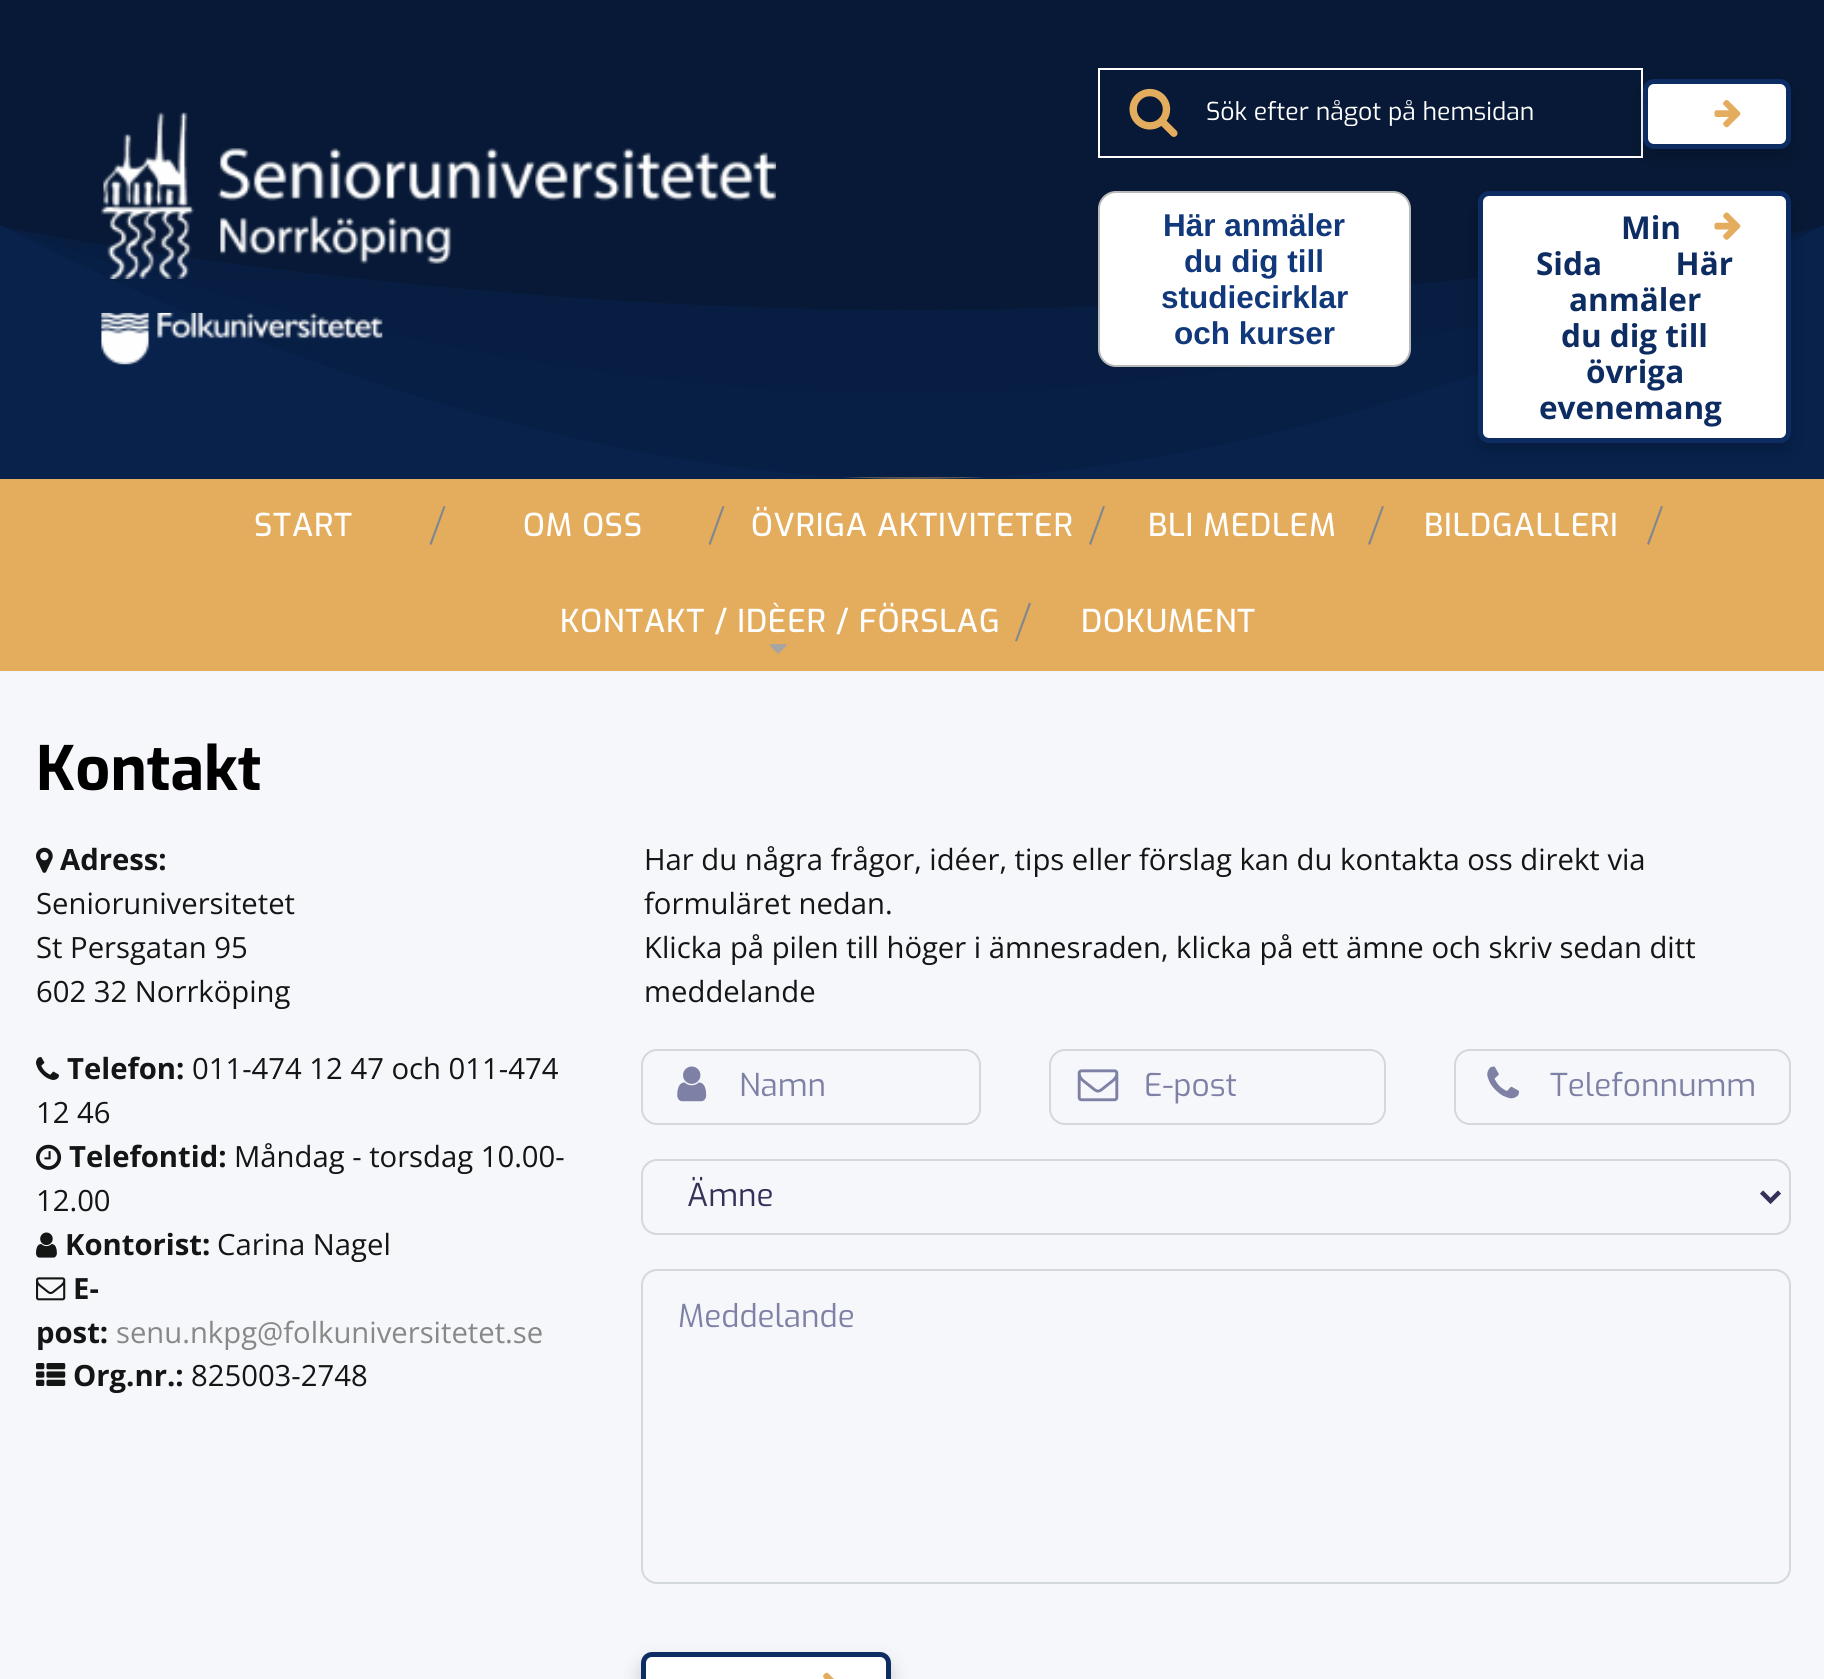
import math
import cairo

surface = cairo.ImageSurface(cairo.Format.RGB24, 1824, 1679)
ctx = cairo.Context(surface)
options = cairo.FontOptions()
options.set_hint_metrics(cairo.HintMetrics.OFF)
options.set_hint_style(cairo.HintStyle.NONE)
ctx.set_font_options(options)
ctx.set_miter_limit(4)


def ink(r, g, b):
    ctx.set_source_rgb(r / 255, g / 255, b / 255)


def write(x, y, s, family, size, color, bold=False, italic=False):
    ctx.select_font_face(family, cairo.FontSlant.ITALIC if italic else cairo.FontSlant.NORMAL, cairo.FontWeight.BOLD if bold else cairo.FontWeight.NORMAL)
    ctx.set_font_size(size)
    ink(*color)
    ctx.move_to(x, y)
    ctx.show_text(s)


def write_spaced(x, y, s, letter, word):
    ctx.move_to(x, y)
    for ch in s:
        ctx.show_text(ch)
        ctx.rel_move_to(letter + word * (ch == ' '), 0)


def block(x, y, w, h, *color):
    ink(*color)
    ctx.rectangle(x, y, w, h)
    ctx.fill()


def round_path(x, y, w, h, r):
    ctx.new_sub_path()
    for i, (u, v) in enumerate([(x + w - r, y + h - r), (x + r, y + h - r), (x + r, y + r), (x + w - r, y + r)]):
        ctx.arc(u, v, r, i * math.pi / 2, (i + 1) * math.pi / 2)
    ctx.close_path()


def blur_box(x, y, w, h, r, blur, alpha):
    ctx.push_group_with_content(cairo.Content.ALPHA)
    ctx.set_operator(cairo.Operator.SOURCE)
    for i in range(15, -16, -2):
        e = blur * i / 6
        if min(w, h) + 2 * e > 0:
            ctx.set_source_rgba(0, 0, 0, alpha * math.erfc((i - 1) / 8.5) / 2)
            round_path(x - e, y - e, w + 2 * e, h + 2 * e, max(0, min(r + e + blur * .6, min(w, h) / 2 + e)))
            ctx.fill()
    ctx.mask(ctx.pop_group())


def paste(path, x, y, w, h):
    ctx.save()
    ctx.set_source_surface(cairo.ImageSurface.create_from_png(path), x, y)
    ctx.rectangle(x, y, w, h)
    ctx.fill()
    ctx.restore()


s1 = dict(family="Exo", size=24.75, color=(255, 255, 255))
s2 = dict(family="Liberation Sans", size=31.5, color=(16, 56, 122), bold=True)
s3 = dict(family="Open Sans", size=31.5, color=(13, 45, 98), bold=True)
s4 = dict(family="Exo", size=61, color=(0, 0, 0), bold=True)
s5 = dict(family="Open Sans", size=29.25, color=(20, 21, 21), bold=True)
s6 = dict(family="Open Sans", size=29.25, color=(20, 21, 21))
s7 = dict(family="Open Sans", size=29.25, color=(136, 136, 136))
s8 = dict(family="Exo", size=31.5, color=(126, 129, 165))
s9 = dict(family="Exo", size=31.5, color=(53, 49, 89))

ink(245, 247, 250)
ctx.paint()
block(0, 477, 1824, 194, 228, 172, 93)
block(0, 0, 1824, 477, 7, 25, 54)
ink(10, 35, 77)
ctx.new_path()
ctx.move_to(914, 479)
ctx.curve_to(467, 479, 20, 235, 0, 225)
ctx.line_to(0, 479)
ctx.line_to(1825, 479)
ctx.line_to(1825, 225)
ctx.curve_to(1797, 239, 1355, 479, 914, 479)
ctx.close_path()
ctx.fill()
ctx.set_source_rgba(0.039, 0.137, 0.302, 0.5)
ctx.new_path()
ctx.move_to(909, 310)
ctx.curve_to(462, 310, 20, 235, 0, 225)
ctx.line_to(0, 479)
ctx.line_to(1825, 479)
ctx.line_to(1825, 225)
ctx.curve_to(1797, 239, 1350, 310, 909, 310)
ctx.close_path()
ctx.fill()
ctx.set_source_rgba(0.039, 0.137, 0.302, 0.3)
ctx.new_path()
ctx.move_to(909, 394)
ctx.curve_to(462, 394, 20, 235, 0, 225)
ctx.line_to(0, 479)
ctx.line_to(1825, 479)
ctx.line_to(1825, 225)
ctx.curve_to(1797, 239, 1350, 394, 909, 394)
ctx.close_path()
ctx.fill()
paste("pic1.png", 101, 112, 676, 167)
paste("pic2.png", 101, 312, 282, 53)
ctx.rectangle(1099, 69, 543, 88)
ink(255, 255, 255)
ctx.stroke()
paste("pic3.png", 1129, 88, 49, 49)
write(1206, 120, "Sök efter något på hemsidan", **s1)
ink(0, 0, 0)
blur_box(1643, 88, 148, 70, 11, 9, 0.18)
ink(255, 255, 255)
round_path(1645.5, 81.5, 143, 65, 8.5)
ctx.fill_preserve()
ink(13, 45, 98)
ctx.set_line_width(5)
ctx.stroke()
paste("pic4.png", 1714, 100, 27, 28)
ink(255, 255, 255)
round_path(1099, 192, 311, 174, 17)
ctx.fill_preserve()
ink(185, 185, 185)
ctx.set_line_width(2)
ctx.stroke()
write(1163, 236, "Här anmäler", **s2)
write(1184, 272, "du dig till", **s2)
write(1161, 308, "studiecirklar", **s2)
write(1174, 344, "och kurser", **s2)
ink(0, 0, 0)
blur_box(1478, 200, 313, 252, 11, 9, 0.18)
ink(255, 255, 255)
round_path(1480.5, 193.5, 308, 247, 8.5)
ctx.fill_preserve()
ink(13, 45, 98)
ctx.set_line_width(5)
ctx.stroke()
write(1621, 239, "Min", **s3)
paste("pic5.png", 1714, 212, 27, 28)
write(1536, 275, "Sida         Här", **s3)
write(1569, 311, "anmäler", **s3)
write(1561, 347, "du dig till", **s3)
write(1586, 383, "övriga", **s3)
write(1539, 419, "evenemang", **s3)
ctx.select_font_face("Exo Medium")
ink(255, 255, 255)
write_spaced(254, 536, "START", 0.75, 0)
ink(128, 135, 142)
ctx.new_path()
ctx.move_to(443.5, 506)
ctx.line_to(445.5, 506.5)
ctx.line_to(431.5, 545)
ctx.line_to(429.5, 544)
ctx.close_path()
ctx.fill()
ink(255, 255, 255)
write_spaced(523, 536, "OM OSS", 0.75, 0)
ink(128, 135, 142)
ctx.new_path()
ctx.move_to(722.5, 506)
ctx.line_to(724.5, 506.5)
ctx.line_to(710.5, 545)
ctx.line_to(708.5, 544)
ctx.close_path()
ctx.fill()
ink(255, 255, 255)
write_spaced(751, 536, "ÖVRIGA AKTIVITETER", 0.75, 0)
ink(128, 135, 142)
ctx.new_path()
ctx.move_to(1103, 506)
ctx.line_to(1105, 506.5)
ctx.line_to(1091, 545)
ctx.line_to(1089, 544)
ctx.close_path()
ctx.fill()
ink(255, 255, 255)
write_spaced(1148, 536, "BLI MEDLEM", 0.75, 0)
ink(128, 135, 142)
ctx.new_path()
ctx.move_to(1382, 506)
ctx.line_to(1384, 506.5)
ctx.line_to(1370, 545)
ctx.line_to(1368, 544)
ctx.close_path()
ctx.fill()
ink(255, 255, 255)
write_spaced(1424, 536, "BILDGALLERI", 0.75, 0)
ink(128, 135, 142)
ctx.new_path()
ctx.move_to(1661, 506)
ctx.line_to(1663, 506.5)
ctx.line_to(1649, 545)
ctx.line_to(1647, 544)
ctx.close_path()
ctx.fill()
ink(255, 255, 255)
write_spaced(560, 632, "KONTAKT / IDÈER / FÖRSLAG", 0.75, 0)
paste("pic6.png", 769, 644, 18, 10)
ink(128, 135, 142)
ctx.new_path()
ctx.move_to(1029, 602.5)
ctx.line_to(1031, 603.5)
ctx.line_to(1017, 641.5)
ctx.line_to(1015, 641)
ctx.close_path()
ctx.fill()
ink(255, 255, 255)
write_spaced(1081, 632, "DOKUMENT", 0.75, 0)
write(36, 790, "Kontakt", **s4)
paste("pic7.png", 36, 847, 17, 26)
write(60, 870, "Adress:", **s5)
write(36, 914, "Senioruniversitetet", **s6)
write(36, 958, "St Persgatan 95", **s6)
write(36, 1002, "602 32 Norrköping", **s6)
paste("pic8.png", 36, 1057, 23, 23)
write(67, 1079, "Telefon:", **s5)
write(192, 1079, "011-474 12 47 och 011-474", **s6)
write(36, 1123, "12 46", **s6)
paste("pic9.png", 36, 1144, 26, 26)
write(69, 1167, "Telefontid:", **s5)
write(234, 1167, "Måndag - torsdag 10.00-", **s6)
write(36, 1211, "12.00", **s6)
paste("pic10.png", 36, 1232, 21, 26)
write(65, 1255, "Kontorist:", **s5)
write(217, 1255, "Carina Nagel", **s6)
paste("pic11.png", 36, 1277, 30, 24)
write(73, 1299, "E-", **s5)
write(36, 1343, "post:", **s5)
write(116, 1343, "senu.nkpg@folkuniversitetet.se", **s7)
paste("pic12.png", 36, 1363, 30, 23)
write(73, 1386, "Org.nr.:", **s5)
write(191, 1386, "825003-2748", **s6)
write(644, 870, "Har du några frågor, idéer, tips eller förslag kan du kontakta oss direkt via", **s6)
write(644, 914, "formuläret nedan.", **s6)
write(644, 958, "Klicka på pilen till höger i ämnesraden, klicka på ett ämne och skriv sedan ditt", **s6)
write(644, 1002, "meddelande", **s6)
round_path(642, 1050, 338, 74, 15)
ink(211, 216, 219)
ctx.set_line_width(2)
ctx.stroke()
paste("pic13.png", 677, 1066, 30, 36)
write(739, 1096, "Namn", **s8)
round_path(1050, 1050, 335, 74, 15)
ink(211, 216, 219)
ctx.stroke()
paste("pic14.png", 1077, 1069, 42, 33)
write(1144, 1096, "E-post", **s8)
round_path(1455, 1050, 335, 74, 15)
ink(211, 216, 219)
ctx.stroke()
paste("pic15.png", 1487, 1066, 33, 33)
write(1550, 1096, "Telefonnumm", **s8)
round_path(642, 1160, 1148, 74, 15)
ink(211, 216, 219)
ctx.stroke()
ctx.new_path()
ctx.move_to(1761.5, 1192)
ctx.line_to(1770.5, 1201)
ctx.line_to(1779.5, 1192)
ink(53, 49, 89)
ctx.set_line_width(4.5)
ctx.stroke()
write(687, 1206, "Ämne", **s9)
round_path(642, 1270, 1148, 313, 15)
ink(211, 216, 219)
ctx.set_line_width(2)
ctx.stroke()
write(678, 1327, "Meddelande", **s8)
ink(0, 0, 0)
blur_box(641, 1661, 250, 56, 11, 9, 0.18)
ink(255, 255, 255)
round_path(643.5, 1654.5, 245, 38, 8.5)
ctx.fill_preserve()
ink(13, 45, 98)
ctx.set_line_width(5)
ctx.stroke()
paste("pic16.png", 823, 1672, 11, 7)
surface.write_to_png("screenshot.png")
